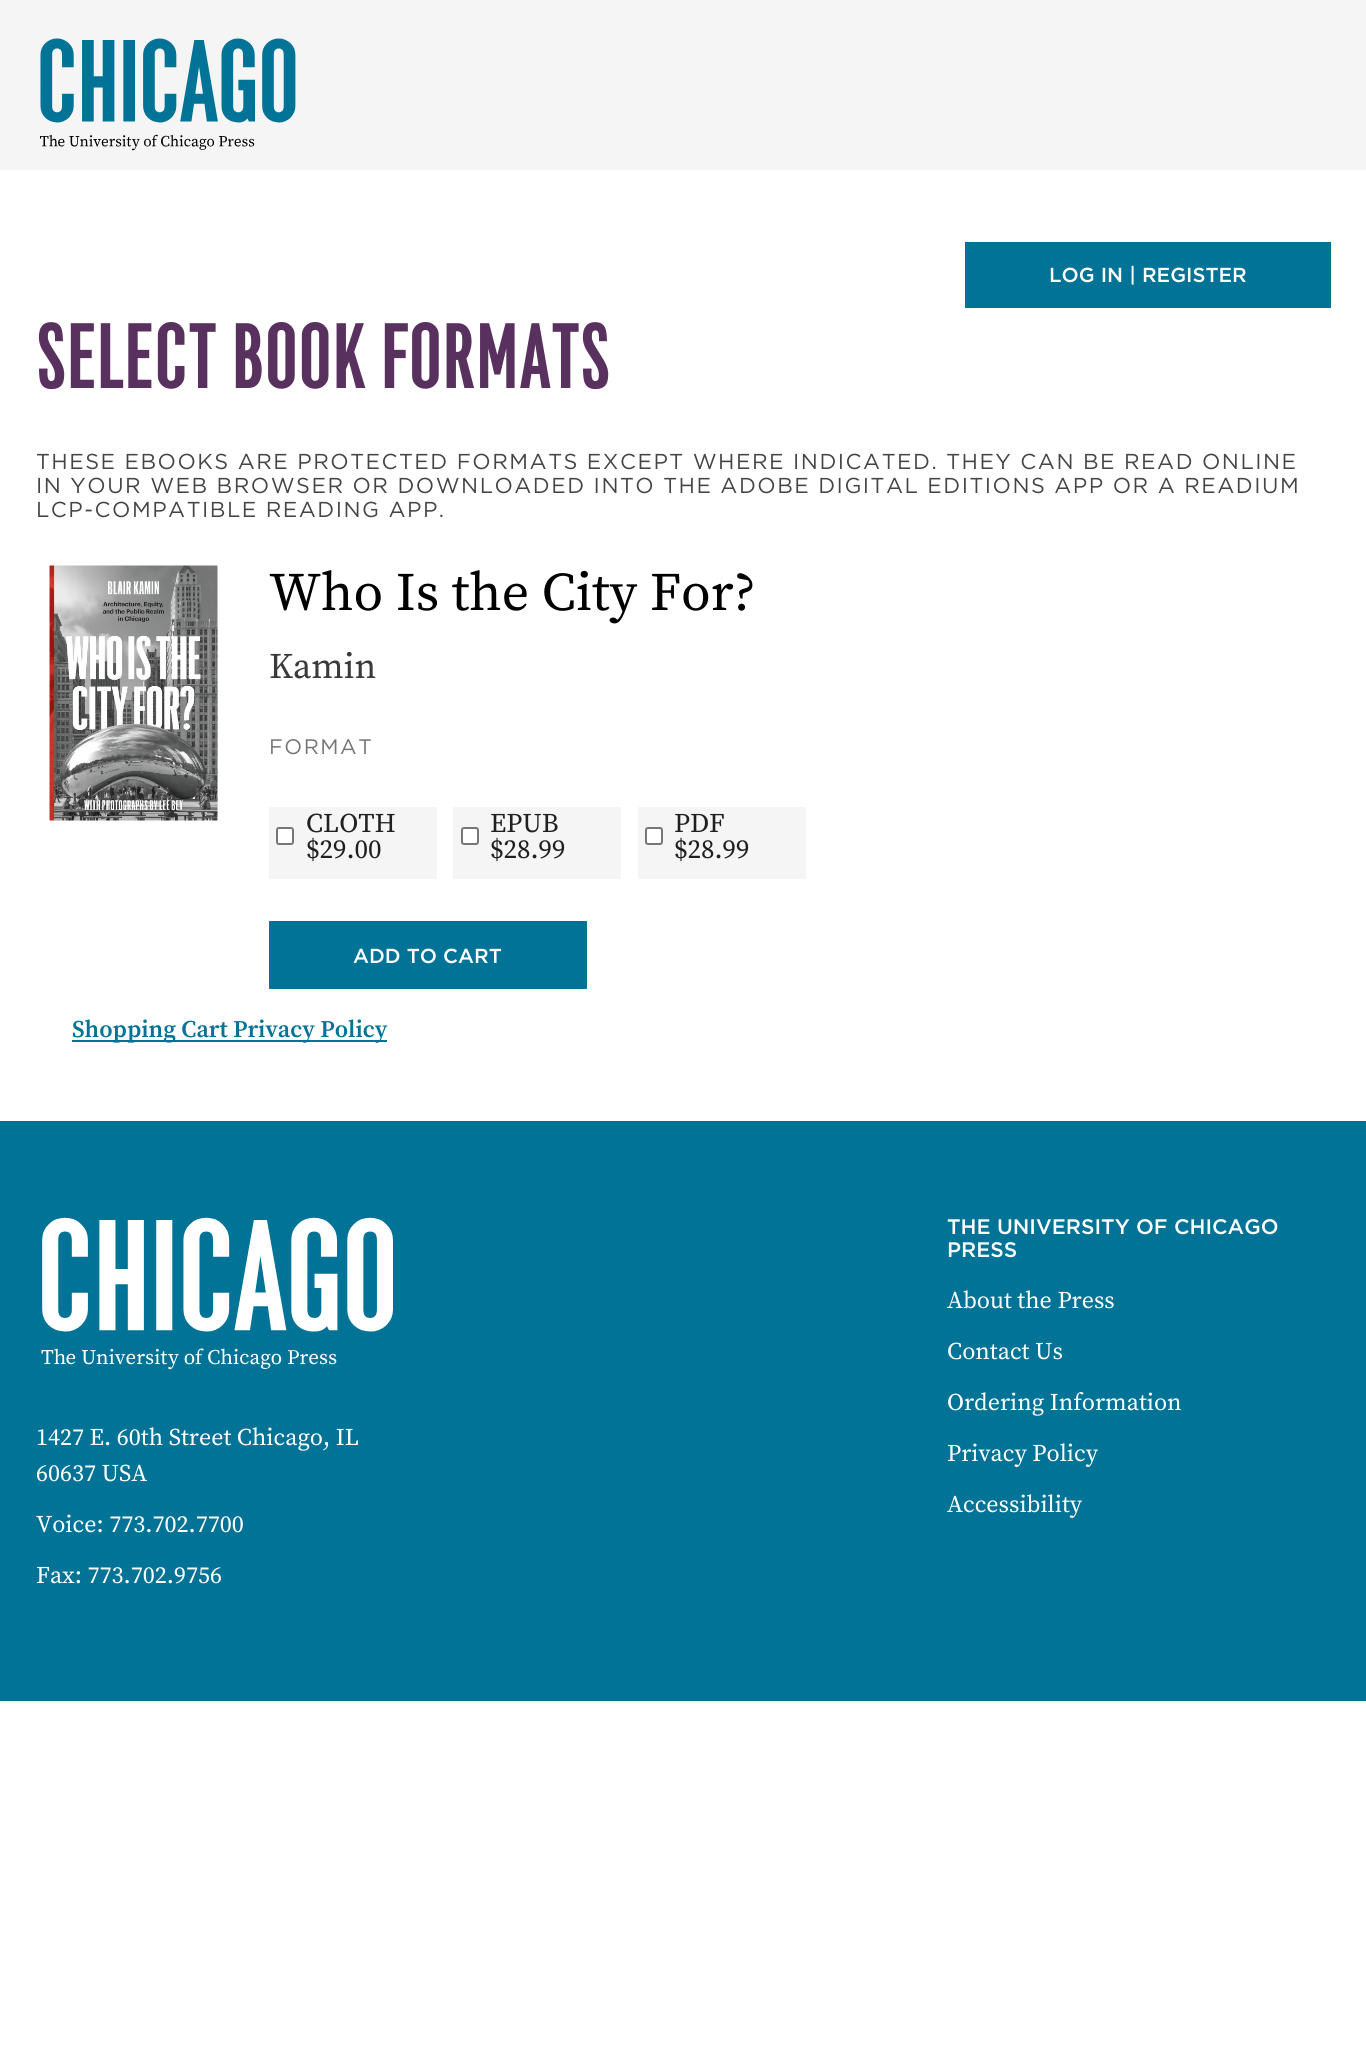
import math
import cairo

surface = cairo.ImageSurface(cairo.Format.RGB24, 1366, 2052)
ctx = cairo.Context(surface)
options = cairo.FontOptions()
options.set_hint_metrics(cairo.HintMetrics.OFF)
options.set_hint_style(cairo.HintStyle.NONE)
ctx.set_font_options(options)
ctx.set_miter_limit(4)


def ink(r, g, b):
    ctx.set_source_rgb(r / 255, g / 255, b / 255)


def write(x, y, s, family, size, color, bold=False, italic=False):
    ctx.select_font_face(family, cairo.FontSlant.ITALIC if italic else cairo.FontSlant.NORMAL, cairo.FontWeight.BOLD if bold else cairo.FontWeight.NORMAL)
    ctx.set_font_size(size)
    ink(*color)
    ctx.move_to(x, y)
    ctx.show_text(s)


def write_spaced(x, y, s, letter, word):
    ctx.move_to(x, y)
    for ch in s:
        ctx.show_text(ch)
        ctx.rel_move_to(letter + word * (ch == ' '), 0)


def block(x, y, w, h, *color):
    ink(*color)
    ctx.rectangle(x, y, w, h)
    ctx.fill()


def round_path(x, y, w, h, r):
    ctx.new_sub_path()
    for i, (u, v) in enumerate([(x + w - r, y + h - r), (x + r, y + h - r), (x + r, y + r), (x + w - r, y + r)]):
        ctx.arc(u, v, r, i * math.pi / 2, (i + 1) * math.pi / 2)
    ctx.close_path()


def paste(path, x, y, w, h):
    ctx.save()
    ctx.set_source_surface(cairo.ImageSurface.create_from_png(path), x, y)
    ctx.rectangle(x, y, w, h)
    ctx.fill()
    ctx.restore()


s1 = dict(family="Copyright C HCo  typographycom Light", size=20.25, color=(255, 255, 255))
s2 = dict(family="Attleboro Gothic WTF", size=72, color=(89, 49, 95))
s3 = dict(family="Source Serif Pro", size=54, color=(0, 0, 0))
s4 = dict(family="Source Serif Pro", size=36, color=(58, 58, 58))
s5 = dict(family="Source Serif Pro", size=27, color=(32, 32, 32))
s6 = dict(family="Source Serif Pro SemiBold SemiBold", size=24, color=(0, 115, 150))
s7 = dict(family="Source Serif Pro", size=24, color=(255, 255, 255))
s8 = dict(family="Copyright C HCo  typographycom Light", size=21, color=(255, 255, 255))

ink(255, 255, 255)
ctx.paint()
block(0, 0, 1366, 170, 245, 245, 245)
paste("pic1.png", 40, 38, 256, 113)
block(965, 242, 366, 66, 0, 115, 150)
write(1049, 282, "LOG IN | REGISTER", **s1)
write(36, 388, "SELECT BOOK FORMATS", **s2)
ctx.select_font_face("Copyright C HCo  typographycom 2 Light")
ctx.set_font_size(21.6)
ink(69, 69, 69)
write_spaced(36, 469, "THESE EBOOKS ARE PROTECTED FORMATS EXCEPT WHERE INDICATED. THEY CAN BE READ ONLINE", 1.5, 0)
write_spaced(36, 493, "IN YOUR WEB BROWSER OR DOWNLOADED INTO THE ADOBE DIGITAL EDITIONS APP OR A READIUM", 1.5, 0)
write_spaced(36, 517, "LCP-COMPATIBLE READING APP.", 1.5, 0)
paste("pic2.png", 49, 565, 169, 256)
write(269, 610, "Who Is the City For?", **s3)
write(269, 678, "Kamin", **s4)
ctx.select_font_face("Copyright C HCo  typographycom 2 Light")
ctx.set_font_size(21)
ink(117, 117, 117)
write_spaced(269, 754, "FORMAT", 1.5, 0)
block(269, 807, 168, 72, 245, 245, 245)
ink(255, 255, 255)
round_path(277, 828, 16, 16, 2)
ctx.fill_preserve()
ink(118, 118, 118)
ctx.stroke()
write(306, 832, "CLOTH", **s5)
write(306, 858, "$29.00", **s5)
block(453, 807, 168, 72, 245, 245, 245)
ink(255, 255, 255)
round_path(462, 828, 16, 16, 2)
ctx.fill_preserve()
ink(118, 118, 118)
ctx.stroke()
write(490, 832, "EPUB", **s5)
write(490, 858, "$28.99", **s5)
block(638, 807, 168, 72, 245, 245, 245)
ink(255, 255, 255)
round_path(646, 828, 16, 16, 2)
ctx.fill_preserve()
ink(118, 118, 118)
ctx.stroke()
write(674, 832, "PDF", **s5)
write(674, 858, "$28.99", **s5)
block(269, 921, 318, 68, 0, 115, 150)
write(353, 963, "ADD TO CART", **s1)
block(72, 1040, 315, 2, 0, 115, 150)
write(72, 1037, "Shopping Cart Privacy Policy", **s6)
block(0, 1121, 1366, 580, 0, 115, 150)
paste("pic3.png", 41, 1217, 352, 153)
write(36, 1445, "1427 E. 60th Street Chicago, IL", **s7)
write(36, 1481, "60637 USA", **s7)
write(36, 1532, "Voice: 773.702.7700", **s7)
write(36, 1583, "Fax: 773.702.9756", **s7)
write(947, 1234, "THE UNIVERSITY OF CHICAGO", **s8)
write(947, 1257, "PRESS", **s8)
write(947, 1308, "About the Press", **s7)
write(947, 1359, "Contact Us", **s7)
write(947, 1410, "Ordering Information", **s7)
write(947, 1461, "Privacy Policy", **s7)
write(947, 1512, "Accessibility", **s7)
surface.write_to_png("screenshot.png")
